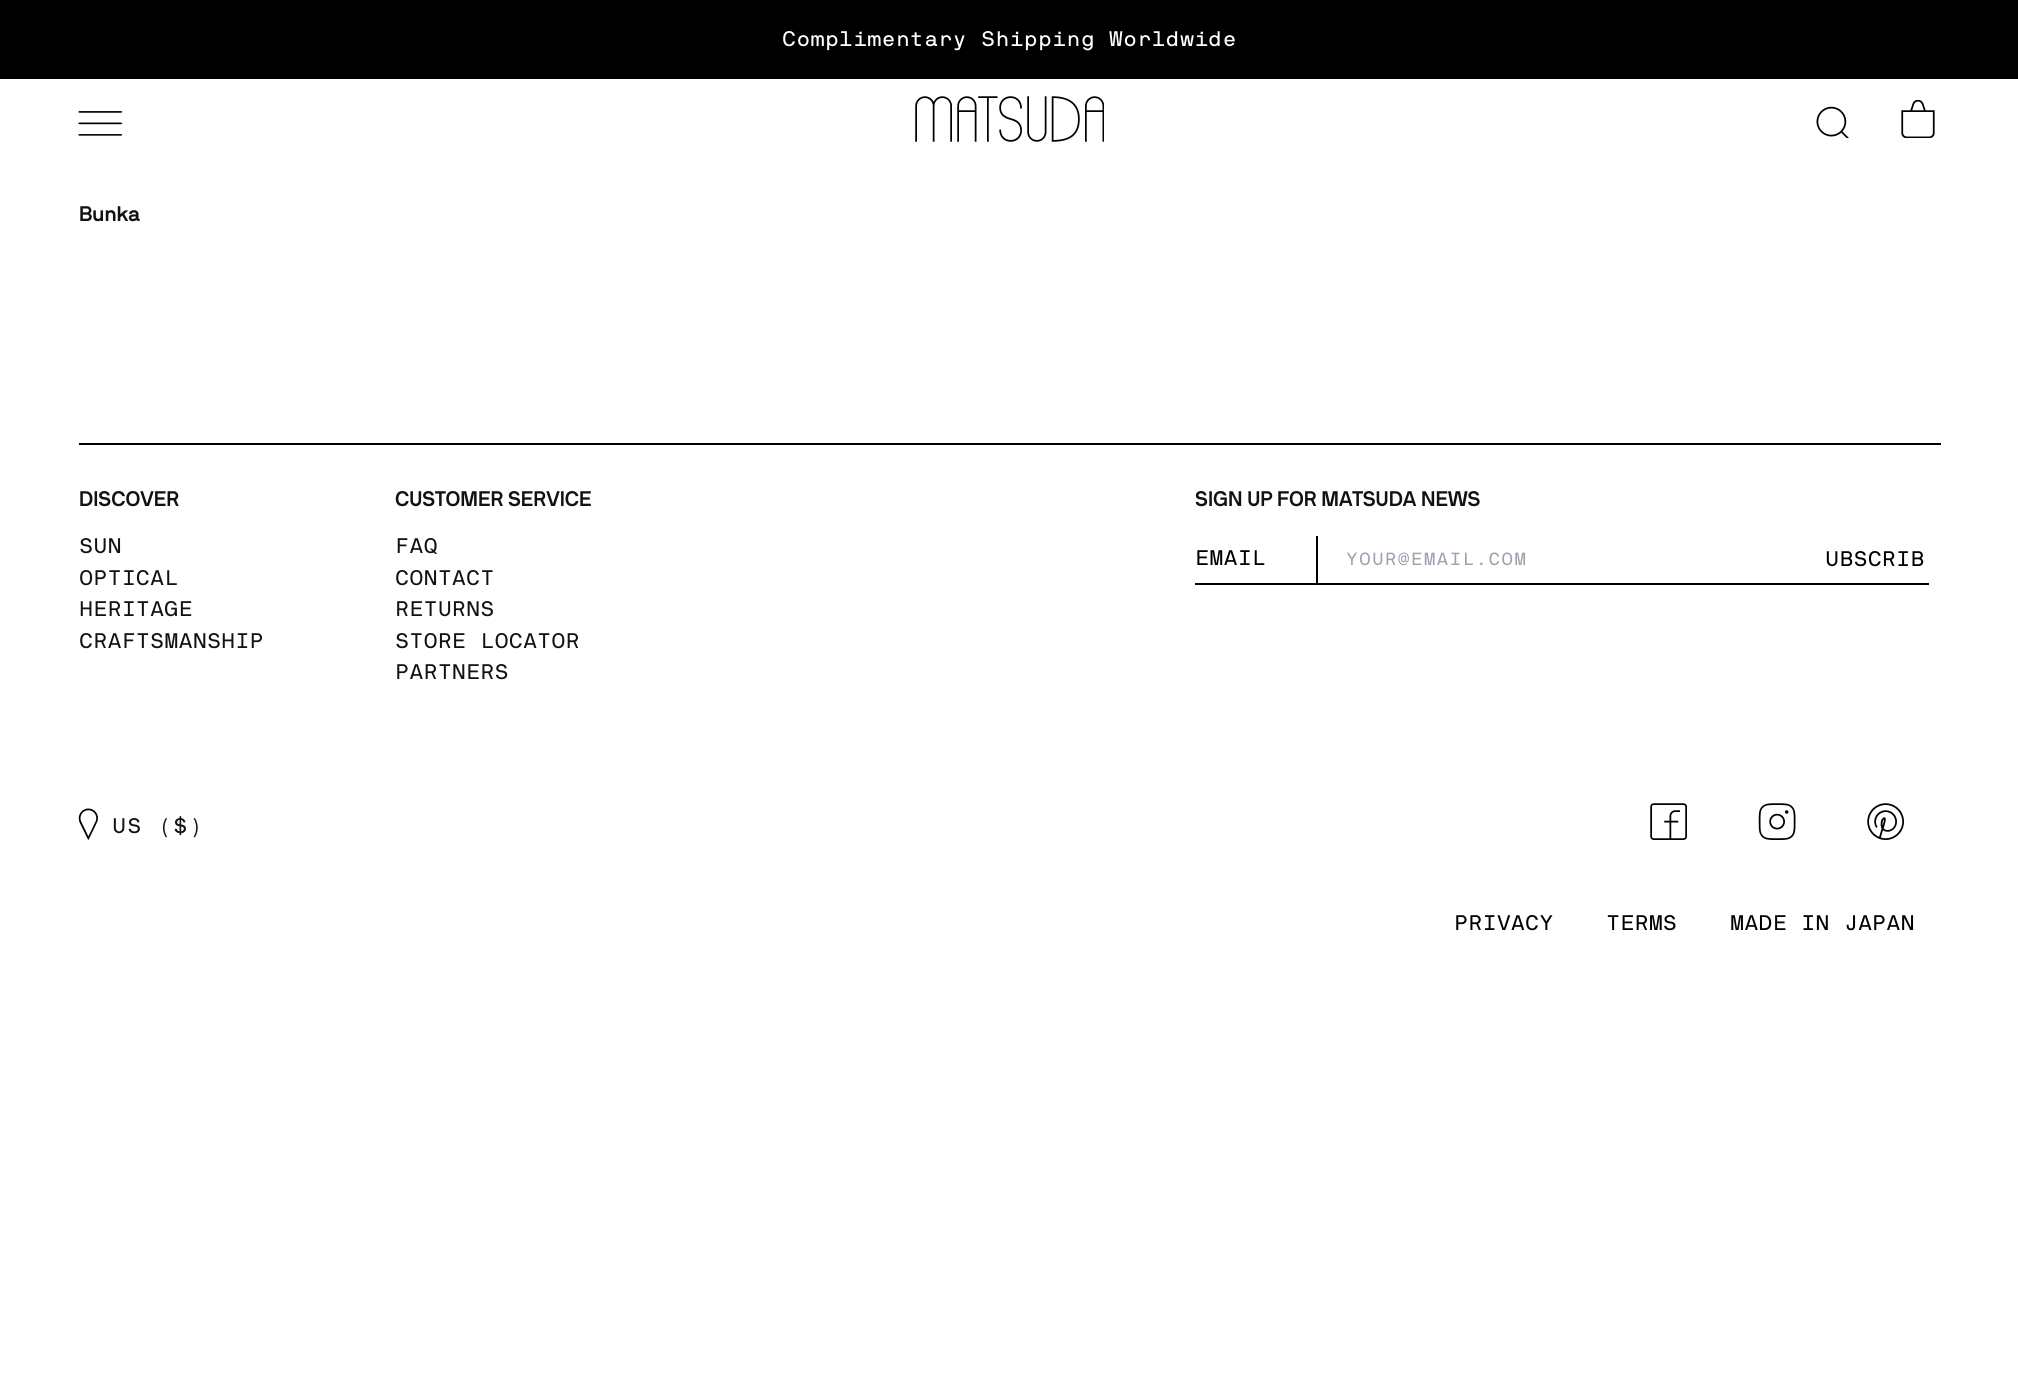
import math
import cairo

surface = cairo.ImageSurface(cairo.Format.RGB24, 2018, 1386)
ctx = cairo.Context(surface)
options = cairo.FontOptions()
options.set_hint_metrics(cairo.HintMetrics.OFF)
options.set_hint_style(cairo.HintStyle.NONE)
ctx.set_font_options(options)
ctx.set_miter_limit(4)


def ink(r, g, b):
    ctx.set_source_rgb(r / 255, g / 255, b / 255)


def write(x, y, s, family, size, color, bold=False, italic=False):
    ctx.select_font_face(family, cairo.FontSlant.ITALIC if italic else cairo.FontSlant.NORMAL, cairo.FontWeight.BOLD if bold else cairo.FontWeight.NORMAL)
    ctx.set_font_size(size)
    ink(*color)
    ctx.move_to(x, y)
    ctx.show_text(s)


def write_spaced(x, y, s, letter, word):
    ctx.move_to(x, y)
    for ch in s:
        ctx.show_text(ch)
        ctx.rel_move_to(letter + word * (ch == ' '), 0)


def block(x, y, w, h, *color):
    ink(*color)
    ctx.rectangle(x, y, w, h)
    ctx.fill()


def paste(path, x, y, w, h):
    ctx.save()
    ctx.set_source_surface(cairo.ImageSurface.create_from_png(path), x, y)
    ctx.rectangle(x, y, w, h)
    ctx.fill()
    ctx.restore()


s1 = dict(family="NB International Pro", size=21, color=(255, 255, 255))
s2 = dict(family="NB International Pro", size=21, color=(18, 18, 18), bold=True)
s3 = dict(family="NB International Pro", size=21, color=(18, 18, 18))
s4 = dict(family="NB International Pro", size=21, color=(0, 0, 0))

ink(255, 255, 255)
ctx.paint()
block(0, 0, 2018, 79, 0, 0, 0)
write(782, 46, "Complimentary Shipping Worldwide", **s1)
paste("pic1.png", 78, 111, 45, 25)
paste("pic2.png", 915, 96, 189, 46)
paste("pic3.png", 1816, 106, 33, 32)
paste("pic4.png", 1901, 100, 34, 38)
write(79, 221, "Bunka", **s2)
block(79, 443, 1862, 2, 0, 0, 0)
write(79, 506, "DISCOVER", **s2)
write(79, 553, "SUN", **s3)
write(79, 585, "OPTICAL", **s3)
write(79, 616, "HERITAGE", **s3)
write(79, 648, "CRAFTSMANSHIP", **s3)
write(395, 506, "CUSTOMER SERVICE", **s2)
write(395, 553, "FAQ", **s3)
write(395, 585, "CONTACT", **s3)
write(395, 616, "RETURNS", **s3)
write(395, 648, "STORE LOCATOR", **s3)
write(395, 679, "PARTNERS", **s3)
write(1195, 506, "SIGN UP FOR MATSUDA NEWS", **s2)
block(1195, 583, 734, 2, 0, 0, 0)
block(1316, 536, 2, 47, 0, 0, 0)
write(1195, 565, "EMAIL", **s4)
ctx.set_font_size(17.5)
ink(156, 163, 175)
write_spaced(1346, 565, "YOUR@EMAIL.COM", 1.1, 0)
write(1825, 566, "UBSCRIB", **s4)
paste("pic5.png", 78, 808, 20, 32)
ink(18, 18, 18)
write_spaced(112, 833, "US ($)", 1.1, 0)
paste("pic6.png", 1650, 803, 37, 37)
paste("pic7.png", 1758, 803, 38, 37)
paste("pic8.png", 1867, 803, 37, 37)
write(1454, 930, "PRIVACY", **s4)
write(1606, 930, "TERMS", **s4)
write(1730, 930, "MADE IN JAPAN", **s4)
surface.write_to_png("screenshot.png")
